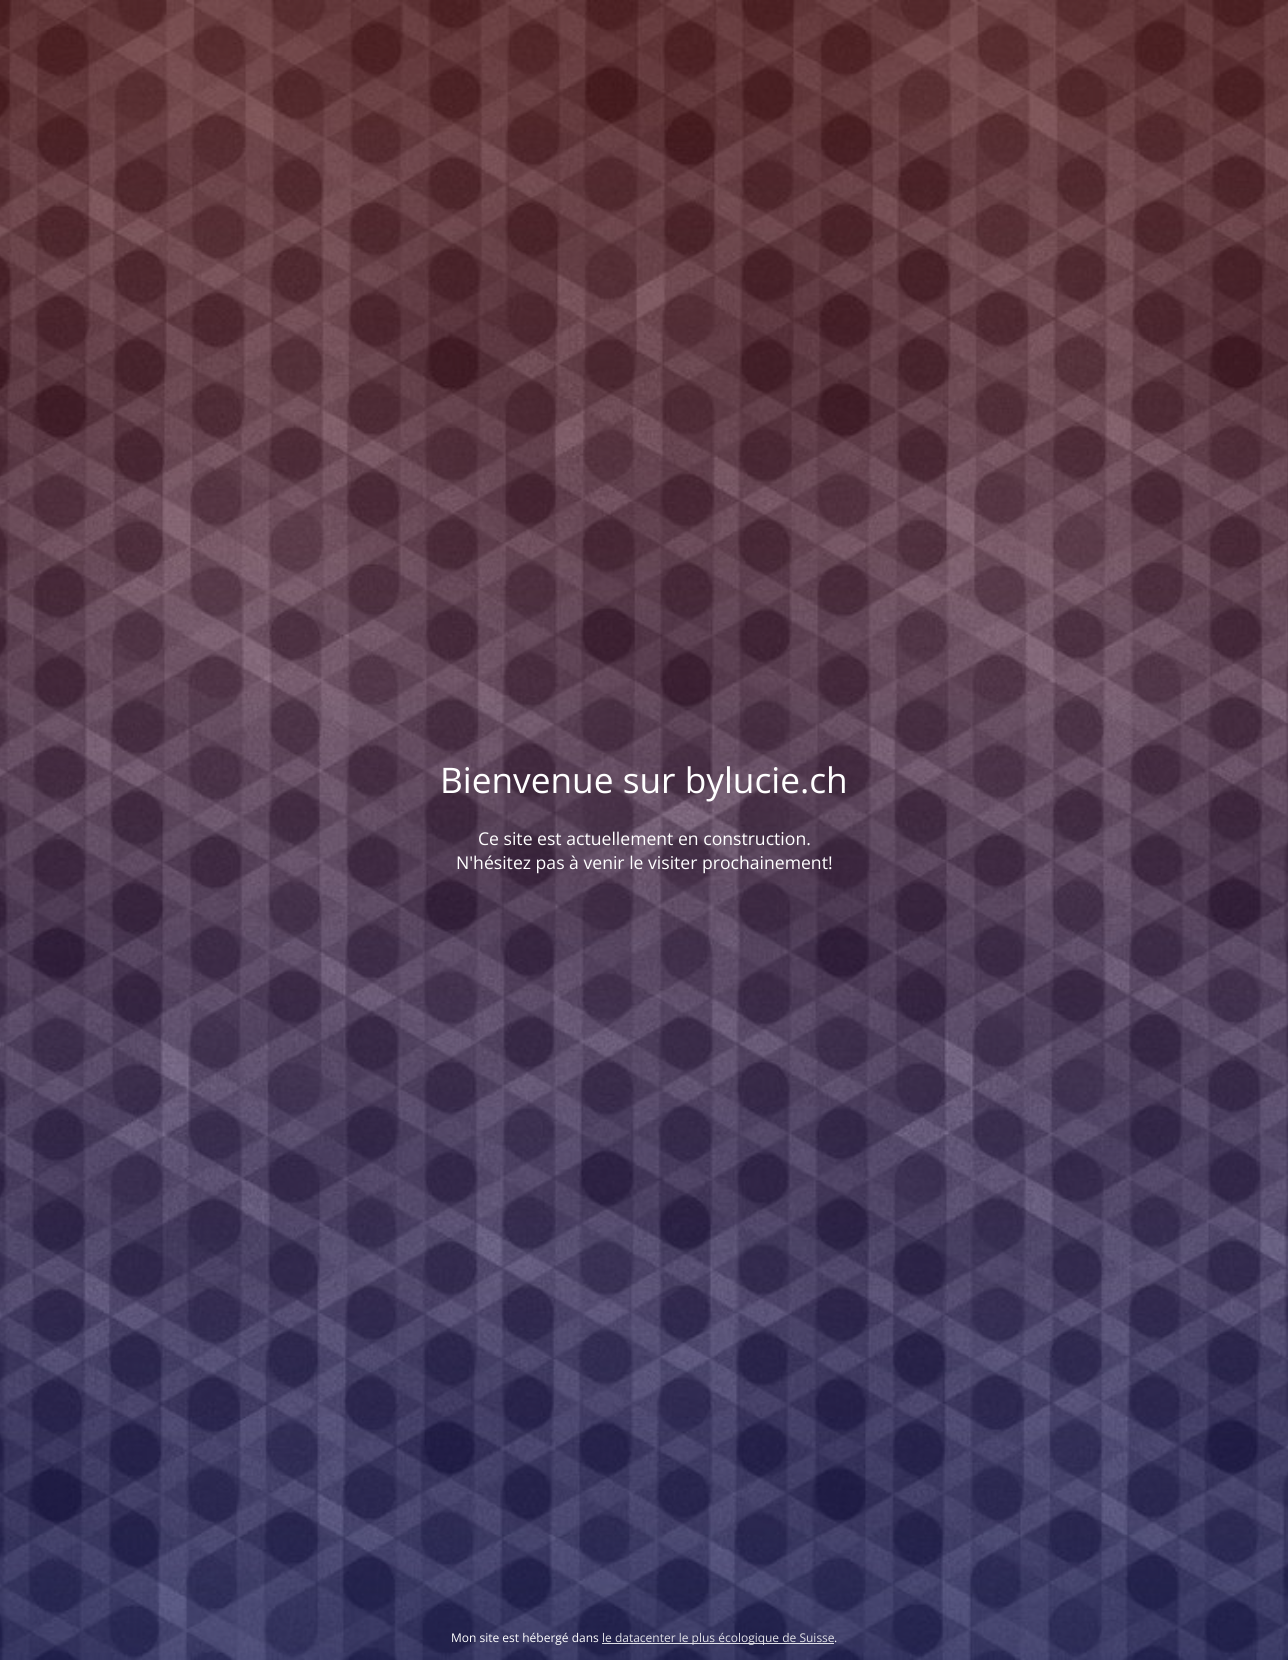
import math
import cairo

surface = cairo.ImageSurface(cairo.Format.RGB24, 1288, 1660)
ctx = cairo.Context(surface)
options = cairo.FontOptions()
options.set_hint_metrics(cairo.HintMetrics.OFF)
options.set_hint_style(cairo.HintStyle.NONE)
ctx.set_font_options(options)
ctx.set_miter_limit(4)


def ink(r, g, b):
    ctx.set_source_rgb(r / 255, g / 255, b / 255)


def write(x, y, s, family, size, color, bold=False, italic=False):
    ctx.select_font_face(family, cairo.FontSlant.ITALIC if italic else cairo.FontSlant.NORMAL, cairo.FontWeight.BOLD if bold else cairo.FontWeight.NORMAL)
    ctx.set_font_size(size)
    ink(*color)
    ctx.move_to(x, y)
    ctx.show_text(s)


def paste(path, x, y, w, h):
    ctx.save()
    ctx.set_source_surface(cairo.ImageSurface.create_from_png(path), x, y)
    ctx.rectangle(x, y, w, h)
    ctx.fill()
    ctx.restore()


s1 = dict(family="Open Sans", size=35.25, color=(255, 255, 255))
s2 = dict(family="Open Sans", size=17.6, color=(255, 255, 255))
s3 = dict(family="Open Sans", size=12, color=(255, 255, 255))
s4 = dict(family="Open Sans", size=12, color=(224, 224, 230))

ink(255, 255, 255)
ctx.paint()
paste("pic1.png", 0, 0, 1288, 1660)
write(440, 793, "Bienvenue sur bylucie.ch", **s1)
write(478, 845, "Ce site est actuellement en construction.", **s2)
write(456, 869, "N'hésitez pas à venir le visiter prochainement!", **s2)
write(451, 1642, "Mon site est hébergé dans", **s3)
ctx.set_source_rgba(1, 1, 1, 0.85)
ctx.rectangle(602, 1643, 232, 1)
ctx.fill()
write(602, 1642, "le datacenter le plus écologique de Suisse", **s4)
write(834, 1642, ".", **s3)
surface.write_to_png("screenshot.png")
